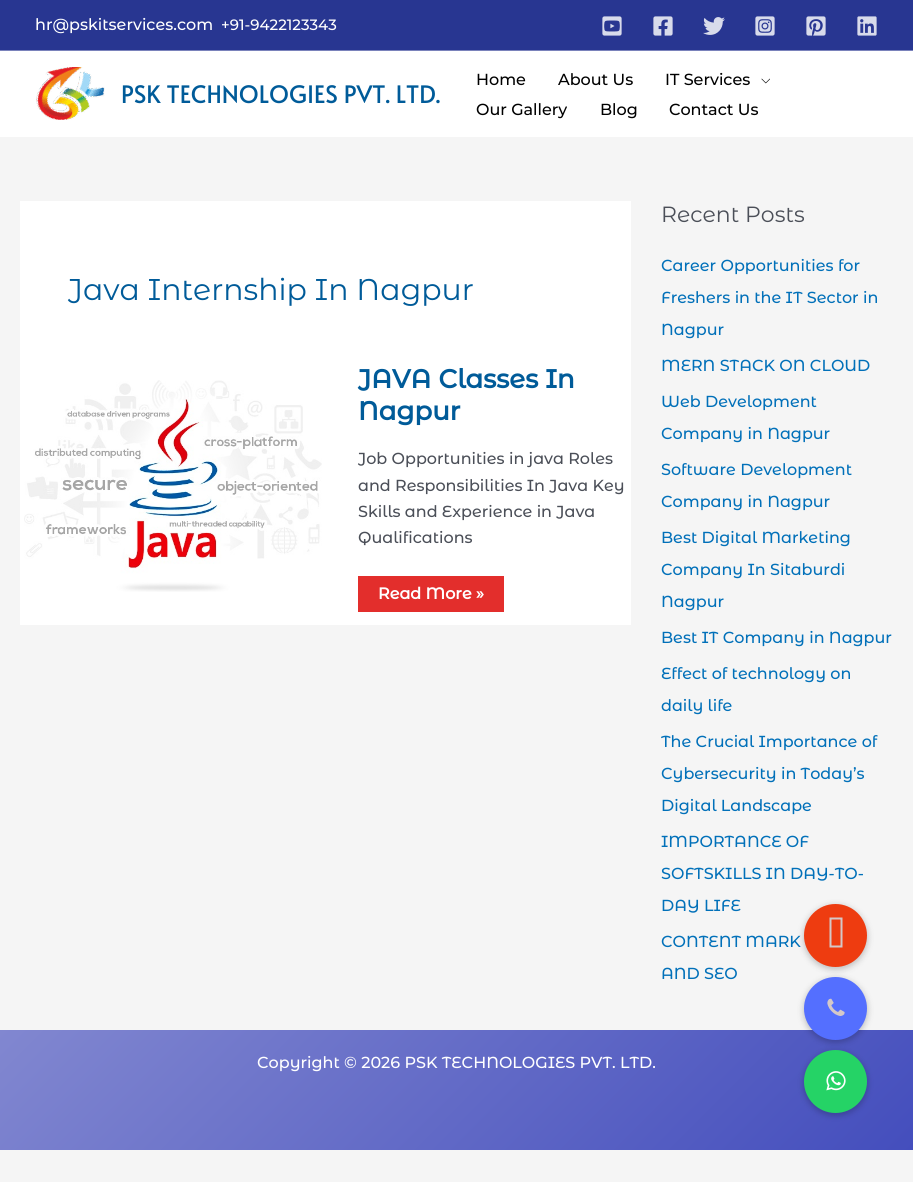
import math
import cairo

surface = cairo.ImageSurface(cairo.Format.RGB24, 913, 1182)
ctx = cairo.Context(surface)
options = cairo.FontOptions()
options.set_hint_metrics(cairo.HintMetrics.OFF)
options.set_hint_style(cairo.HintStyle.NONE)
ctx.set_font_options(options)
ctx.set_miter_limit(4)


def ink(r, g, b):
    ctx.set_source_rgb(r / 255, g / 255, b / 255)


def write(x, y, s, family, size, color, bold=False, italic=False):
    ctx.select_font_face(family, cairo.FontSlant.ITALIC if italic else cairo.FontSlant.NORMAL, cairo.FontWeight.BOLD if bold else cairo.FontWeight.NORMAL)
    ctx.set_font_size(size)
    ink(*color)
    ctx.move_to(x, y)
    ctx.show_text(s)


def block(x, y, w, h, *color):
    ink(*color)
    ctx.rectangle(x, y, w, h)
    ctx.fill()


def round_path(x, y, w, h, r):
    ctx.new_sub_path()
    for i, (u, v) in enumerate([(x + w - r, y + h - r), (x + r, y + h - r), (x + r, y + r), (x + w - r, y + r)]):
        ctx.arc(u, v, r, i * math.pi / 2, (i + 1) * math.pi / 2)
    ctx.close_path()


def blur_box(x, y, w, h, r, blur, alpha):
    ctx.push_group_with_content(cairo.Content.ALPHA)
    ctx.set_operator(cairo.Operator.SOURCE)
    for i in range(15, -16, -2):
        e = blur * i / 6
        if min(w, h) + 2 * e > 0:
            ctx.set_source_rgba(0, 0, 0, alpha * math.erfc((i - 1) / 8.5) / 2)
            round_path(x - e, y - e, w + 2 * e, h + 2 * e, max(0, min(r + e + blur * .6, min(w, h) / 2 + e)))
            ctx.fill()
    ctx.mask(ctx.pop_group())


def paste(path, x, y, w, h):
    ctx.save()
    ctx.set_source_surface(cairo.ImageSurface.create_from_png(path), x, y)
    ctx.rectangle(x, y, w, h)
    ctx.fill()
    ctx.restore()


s1 = dict(family="Montserrat Alternates Medium", size=16, color=(255, 255, 255))
s2 = dict(family="Montserrat Alternates Medium", size=15, color=(255, 255, 255))
s3 = dict(family="Alata", size=24, color=(0, 91, 153))
s4 = dict(family="Montserrat Thin", size=16, color=(0, 0, 0))
s5 = dict(family="Montserrat Alternates", size=30, color=(0, 91, 153))
s6 = dict(family="Montserrat Alternates", size=26, color=(0, 91, 153), bold=True)
s7 = dict(family="Montserrat Alternates Medium", size=16, color=(75, 79, 88))
s8 = dict(family="Montserrat Alternates", size=16, color=(255, 255, 255), bold=True)
s9 = dict(family="Montserrat Alternates", size=22, color=(75, 79, 88))
s10 = dict(family="Montserrat Alternates Medium", size=16, color=(1, 112, 185))

ink(245, 245, 245)
ctx.paint()
block(0, 0, 913, 50, 40, 54, 145)
block(0, 50, 913, 1, 122, 130, 187)
write(35, 30, "hr@pskitservices.com", **s1)
write(221, 30, "+91-9422123343", **s2)
paste("pic1.png", 602, 16, 20, 20)
paste("pic2.png", 653, 16, 20, 20)
paste("pic3.png", 703, 17, 22, 18)
paste("pic4.png", 755, 16, 20, 20)
paste("pic5.png", 806, 16, 20, 20)
paste("pic6.png", 857, 16, 20, 20)
block(0, 51, 913, 86, 255, 255, 255)
paste("pic7.png", 36, 67, 69, 53)
write(121, 103, "PSK TECHNOLOGIES PVT. LTD.", **s3)
write(476, 85, "Home", **s4)
write(558, 85, "About Us", **s4)
write(665, 85, "IT Services", **s4)
paste("pic8.png", 761, 78, 9, 6)
write(476, 115, "Our Gallery", **s4)
write(600, 115, "Blog", **s4)
write(669, 115, "Contact Us", **s4)
block(20, 201, 611, 424, 255, 255, 255)
write(68, 300, "Java Internship In Nagpur", **s5)
paste("pic9.png", 24, 380, 298, 212)
write(358, 388, "JAVA Classes In", **s6)
write(358, 420, "Nagpur", **s6)
write(358, 464, "Job Opportunities in java Roles", **s7)
write(358, 491, "and Responsibilities In Java Key", **s7)
write(358, 517, "Skills and Experience in Java", **s7)
write(358, 543, "Qualifications", **s7)
block(358, 576, 146, 36, 227, 46, 44)
write(378, 599, "Read More »", **s8)
write(661, 222, "Recent Posts", **s9)
write(661, 271, "Career Opportunities for", **s10)
write(661, 303, "Freshers in the IT Sector in", **s10)
write(661, 335, "Nagpur", **s10)
write(661, 371, "MERN STACK ON CLOUD", **s10)
write(661, 407, "Web Development", **s10)
write(661, 439, "Company in Nagpur", **s10)
write(661, 475, "Software Development", **s10)
write(661, 507, "Company in Nagpur", **s10)
write(661, 543, "Best Digital Marketing", **s10)
write(661, 575, "Company In Sitaburdi", **s10)
write(661, 607, "Nagpur", **s10)
write(661, 643, "Best IT Company in Nagpur", **s10)
write(661, 679, "Effect of technology on", **s10)
write(661, 711, "daily life", **s10)
write(661, 747, "The Crucial Importance of", **s10)
write(661, 779, "Cybersecurity in Today’s", **s10)
write(661, 811, "Digital Landscape", **s10)
write(661, 847, "IMPORTANCE OF", **s10)
write(661, 879, "SOFTSKILLS IN DAY-TO-", **s10)
write(661, 911, "DAY LIFE", **s10)
write(661, 947, "CONTENT MARK", **s10)
write(661, 979, "AND SEO", **s10)
gradient = cairo.LinearGradient(198, 832, 715, 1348)
gradient.add_color_stop_rgba(0, 0.506, 0.529, 0.816, 1)
gradient.add_color_stop_rgba(1, 0.267, 0.306, 0.741, 1)
ctx.set_source(gradient)
ctx.rectangle(0, 1030, 913, 120)
ctx.fill()
write(257, 1068, "Copyright © 2026 PSK TECHNOLOGIES PVT. LTD.", **s1)
ink(0, 0, 0)
blur_box(803, 1051, 65, 65, 32.5, 3, 0.2)
ink(37, 211, 102)
ctx.arc(835.5, 1081.5, 31.5, 0, 2 * math.pi)
ctx.fill()
ink(0, 0, 0)
blur_box(803, 978, 65, 65, 32.5, 3, 0.2)
ink(84, 111, 255)
ctx.arc(835.5, 1008.5, 31.5, 0, 2 * math.pi)
ctx.fill()
ink(0, 0, 0)
blur_box(803, 905, 65, 65, 32.5, 3, 0.2)
ink(238, 60, 16)
ctx.arc(835.5, 935.5, 31.5, 0, 2 * math.pi)
ctx.fill()
ink(212, 200, 200)
ctx.new_path()
ctx.move_to(831.5, 945.5)
ctx.line_to(840.5, 945.5)
ctx.line_to(840.5, 919.5)
ctx.line_to(831.5, 919.5)
ctx.close_path()
ctx.move_to(829.5, 947.5)
ctx.line_to(829.5, 917.5)
ctx.line_to(842.5, 917.5)
ctx.line_to(842.5, 947.5)
ctx.close_path()
ctx.fill()
paste("pic10.png", 827, 998, 18, 18)
paste("pic11.png", 826, 1071, 20, 20)
surface.write_to_png("screenshot.png")
